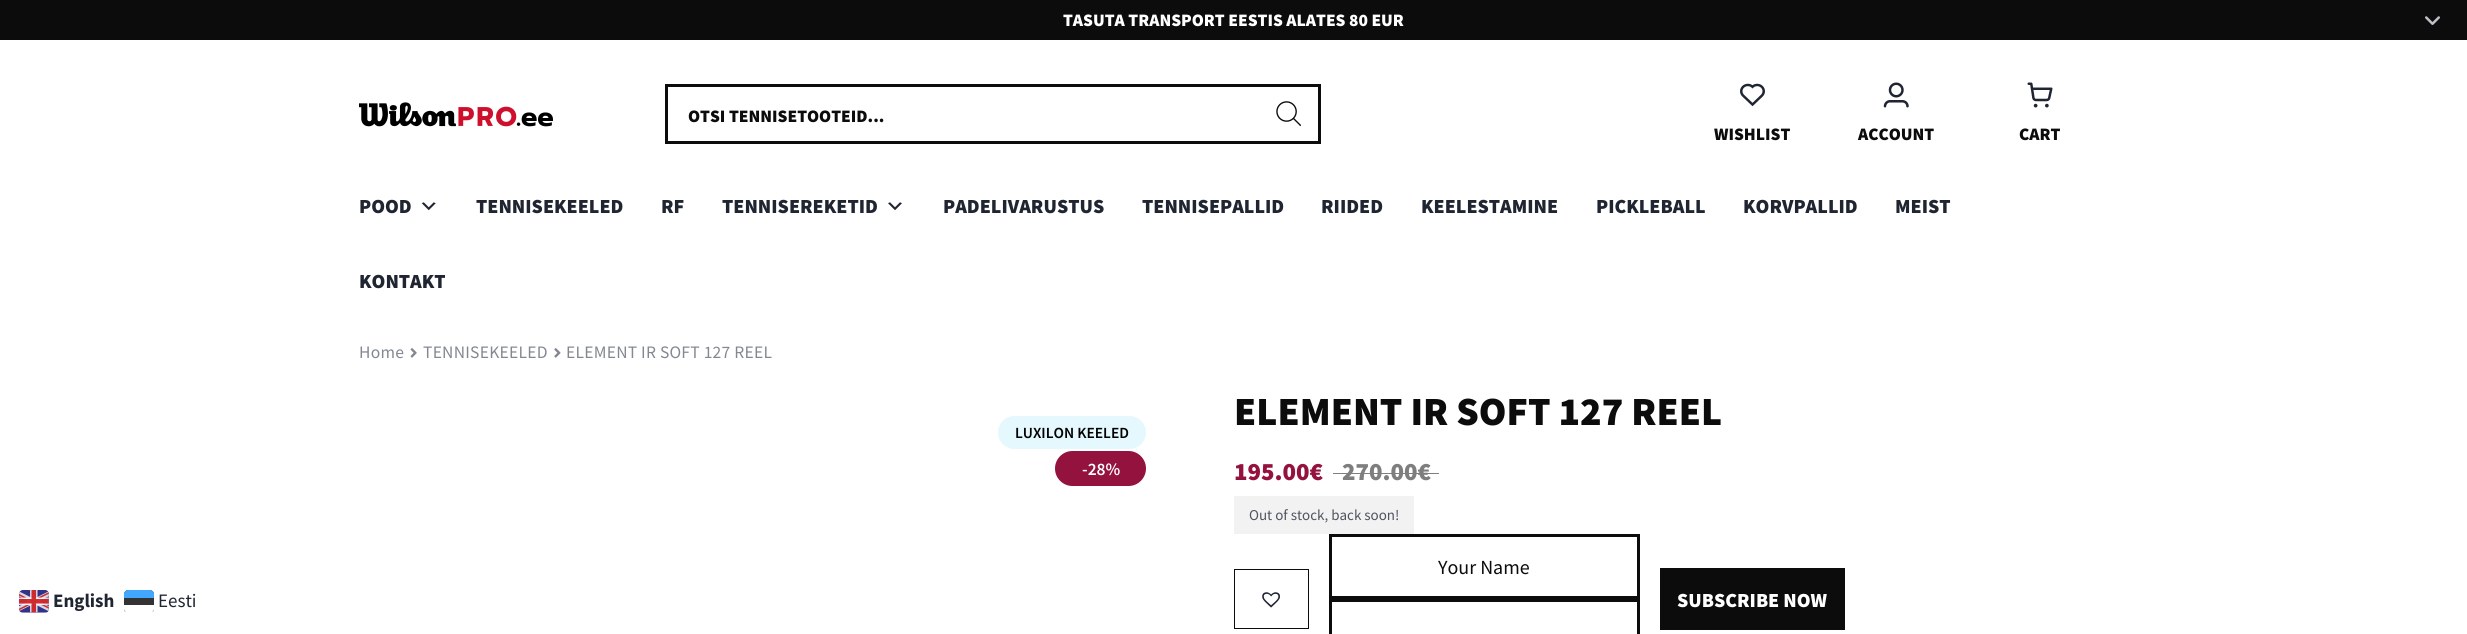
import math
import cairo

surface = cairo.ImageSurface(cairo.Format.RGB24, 2467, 634)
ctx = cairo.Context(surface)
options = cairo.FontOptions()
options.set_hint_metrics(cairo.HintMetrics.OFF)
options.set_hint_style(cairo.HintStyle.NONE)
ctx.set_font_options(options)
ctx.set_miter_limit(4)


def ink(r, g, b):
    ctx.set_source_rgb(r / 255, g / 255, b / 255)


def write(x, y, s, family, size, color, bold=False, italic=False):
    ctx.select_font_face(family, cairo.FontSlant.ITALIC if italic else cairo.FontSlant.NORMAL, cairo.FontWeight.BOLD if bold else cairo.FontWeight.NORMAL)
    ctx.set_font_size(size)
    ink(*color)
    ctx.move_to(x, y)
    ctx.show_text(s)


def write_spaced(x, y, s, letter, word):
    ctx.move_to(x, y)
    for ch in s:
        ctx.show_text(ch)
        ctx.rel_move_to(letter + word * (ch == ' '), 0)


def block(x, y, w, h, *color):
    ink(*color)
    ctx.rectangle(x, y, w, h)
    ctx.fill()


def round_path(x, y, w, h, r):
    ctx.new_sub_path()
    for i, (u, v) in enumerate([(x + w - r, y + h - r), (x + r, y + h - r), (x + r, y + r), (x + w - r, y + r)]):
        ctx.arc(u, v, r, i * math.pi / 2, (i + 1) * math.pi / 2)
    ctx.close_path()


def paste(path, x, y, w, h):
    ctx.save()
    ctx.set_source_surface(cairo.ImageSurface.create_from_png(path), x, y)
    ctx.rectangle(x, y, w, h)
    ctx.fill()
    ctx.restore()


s1 = dict(family="Source Sans Pro", size=19, color=(32, 37, 50), bold=True)
s2 = dict(family="Source Sans Pro", size=19, color=(32, 37, 50))
s3 = dict(family="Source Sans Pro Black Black", size=17.5, color=(255, 255, 255))
s4 = dict(family="Source Sans Pro Black Black", size=17.5, color=(11, 12, 11))
s5 = dict(family="Source Sans Pro Black Black", size=20, color=(32, 37, 50))
s6 = dict(family="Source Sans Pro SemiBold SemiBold", size=15.5, color=(0, 0, 0))
s7 = dict(family="Source Sans Pro SemiBold SemiBold", size=17.5, color=(255, 255, 255))
s8 = dict(family="Source Sans Pro Black Black", size=40, color=(11, 12, 11))
s9 = dict(family="Source Sans Pro Black Black", size=25, color=(148, 18, 62))
s10 = dict(family="Source Sans Pro Black Black", size=25, color=(126, 126, 126))
s11 = dict(family="Source Sans Pro", size=15, color=(80, 84, 94))
s12 = dict(family="Source Sans Pro", size=20, color=(11, 12, 11))
s13 = dict(family="Source Sans Pro Black Black", size=20, color=(255, 255, 255))

ink(255, 255, 255)
ctx.paint()
paste("pic1.png", 19, 590, 30, 23)
write(53, 607, "English", **s1)
write(158, 607, "Eesti", **s2)
ctx.save()
round_path(124, 590, 30, 23, 4)
ctx.clip()
ink(51, 51, 51)
ctx.new_path()
ctx.move_to(128, 590)
ctx.line_to(150, 590)
ctx.curve_to(152, 590, 154, 592, 154, 594)
ctx.line_to(154, 612)
ctx.line_to(124, 612)
ctx.line_to(124, 594)
ctx.curve_to(124, 592, 126, 590, 128, 590)
ctx.close_path()
ctx.fill()
ctx.restore()
ink(255, 255, 255)
ctx.new_path()
ctx.move_to(124, 605)
ctx.line_to(154, 605)
ctx.line_to(154, 609)
ctx.curve_to(154, 611, 152, 613, 150, 613)
ctx.line_to(128, 613)
ctx.curve_to(126, 613, 124, 611, 124, 609)
ctx.close_path()
ctx.fill()
ink(65, 167, 255)
ctx.new_path()
ctx.move_to(128, 590)
ctx.line_to(150, 590)
ctx.curve_to(152, 590, 154, 592, 154, 594)
ctx.line_to(154, 598)
ctx.line_to(124, 598)
ctx.line_to(124, 594)
ctx.curve_to(124, 592, 126, 590, 128, 590)
ctx.close_path()
ctx.fill()
block(0, 0, 2467, 40, 11, 12, 11)
write(1063, 26, "TASUTA TRANSPORT EESTIS ALATES 80 EUR", **s3)
paste("pic2.png", 2425, 16, 15, 9)
paste("pic3.png", 359, 102, 194, 25)
ctx.rectangle(666.5, 85.5, 653, 57)
ink(11, 12, 11)
ctx.set_line_width(3)
ctx.stroke()
write(688, 122, "OTSI TENNISETOOTEID...", **s4)
paste("pic4.png", 1276, 101, 25, 25)
paste("pic5.png", 1740, 83, 25, 24)
write(1714, 140, "WISHLIST", **s4)
paste("pic6.png", 1883, 82, 26, 26)
write(1858, 140, "ACCOUNT", **s4)
paste("pic7.png", 2027, 82, 26, 26)
write(2019, 140, "CART", **s4)
write(359, 213, "POOD", **s5)
paste("pic8.png", 421, 202, 15, 9)
write(476, 213, "TENNISEKEELED", **s5)
write(661, 213, "RF", **s5)
write(722, 213, "TENNISEREKETID", **s5)
paste("pic9.png", 888, 202, 14, 9)
write(943, 213, "PADELIVARUSTUS", **s5)
write(1142, 213, "TENNISEPALLID", **s5)
write(1321, 213, "RIIDED", **s5)
write(1421, 213, "KEELESTAMINE", **s5)
write(1596, 213, "PICKLEBALL", **s5)
write(1743, 213, "KORVPALLID", **s5)
write(1895, 213, "MEIST", **s5)
write(359, 288, "KONTAKT", **s5)
ctx.select_font_face("Source Sans Pro")
ctx.set_font_size(17.5)
ink(131, 135, 145)
write_spaced(359, 358, "Home", 0.25, 0)
paste("pic10.png", 410, 348, 7, 10)
write_spaced(423, 358, "TENNISEKEELED", 0.25, 0)
paste("pic11.png", 554, 348, 7, 10)
write_spaced(566, 358, "ELEMENT IR SOFT 127 REEL", 0.25, 0)
ink(228, 248, 253)
round_path(998, 416, 148, 33, 16.5)
ctx.fill()
write(1015, 438, "LUXILON KEELED", **s6)
ink(148, 18, 62)
round_path(1055, 451, 91, 35, 17.5)
ctx.fill()
write(1082, 475, "-28%", **s7)
write(1234, 425, "ELEMENT IR SOFT 127 REEL", **s8)
write(1234, 480, "195.00€", **s9)
write(1342, 480, "270.00€", **s10)
block(1333, 473, 106, 1, 126, 126, 126)
block(1234, 496, 180, 38, 242, 242, 243)
write(1249, 520, "Out of stock, back soon!", **s11)
ctx.rectangle(1234.5, 569.5, 74, 59)
ink(11, 12, 11)
ctx.set_line_width(1)
ctx.stroke()
paste("pic12.png", 1262, 592, 18, 16)
ctx.rectangle(1330.5, 535.5, 308, 62)
ctx.set_line_width(3)
ctx.stroke()
write(1438, 574, "Your Name", **s12)
ctx.rectangle(1330.5, 600.5, 308, 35)
ctx.stroke()
block(1660, 568, 185, 62, 11, 12, 11)
write(1677, 607, "SUBSCRIBE NOW", **s13)
surface.write_to_png("screenshot.png")
